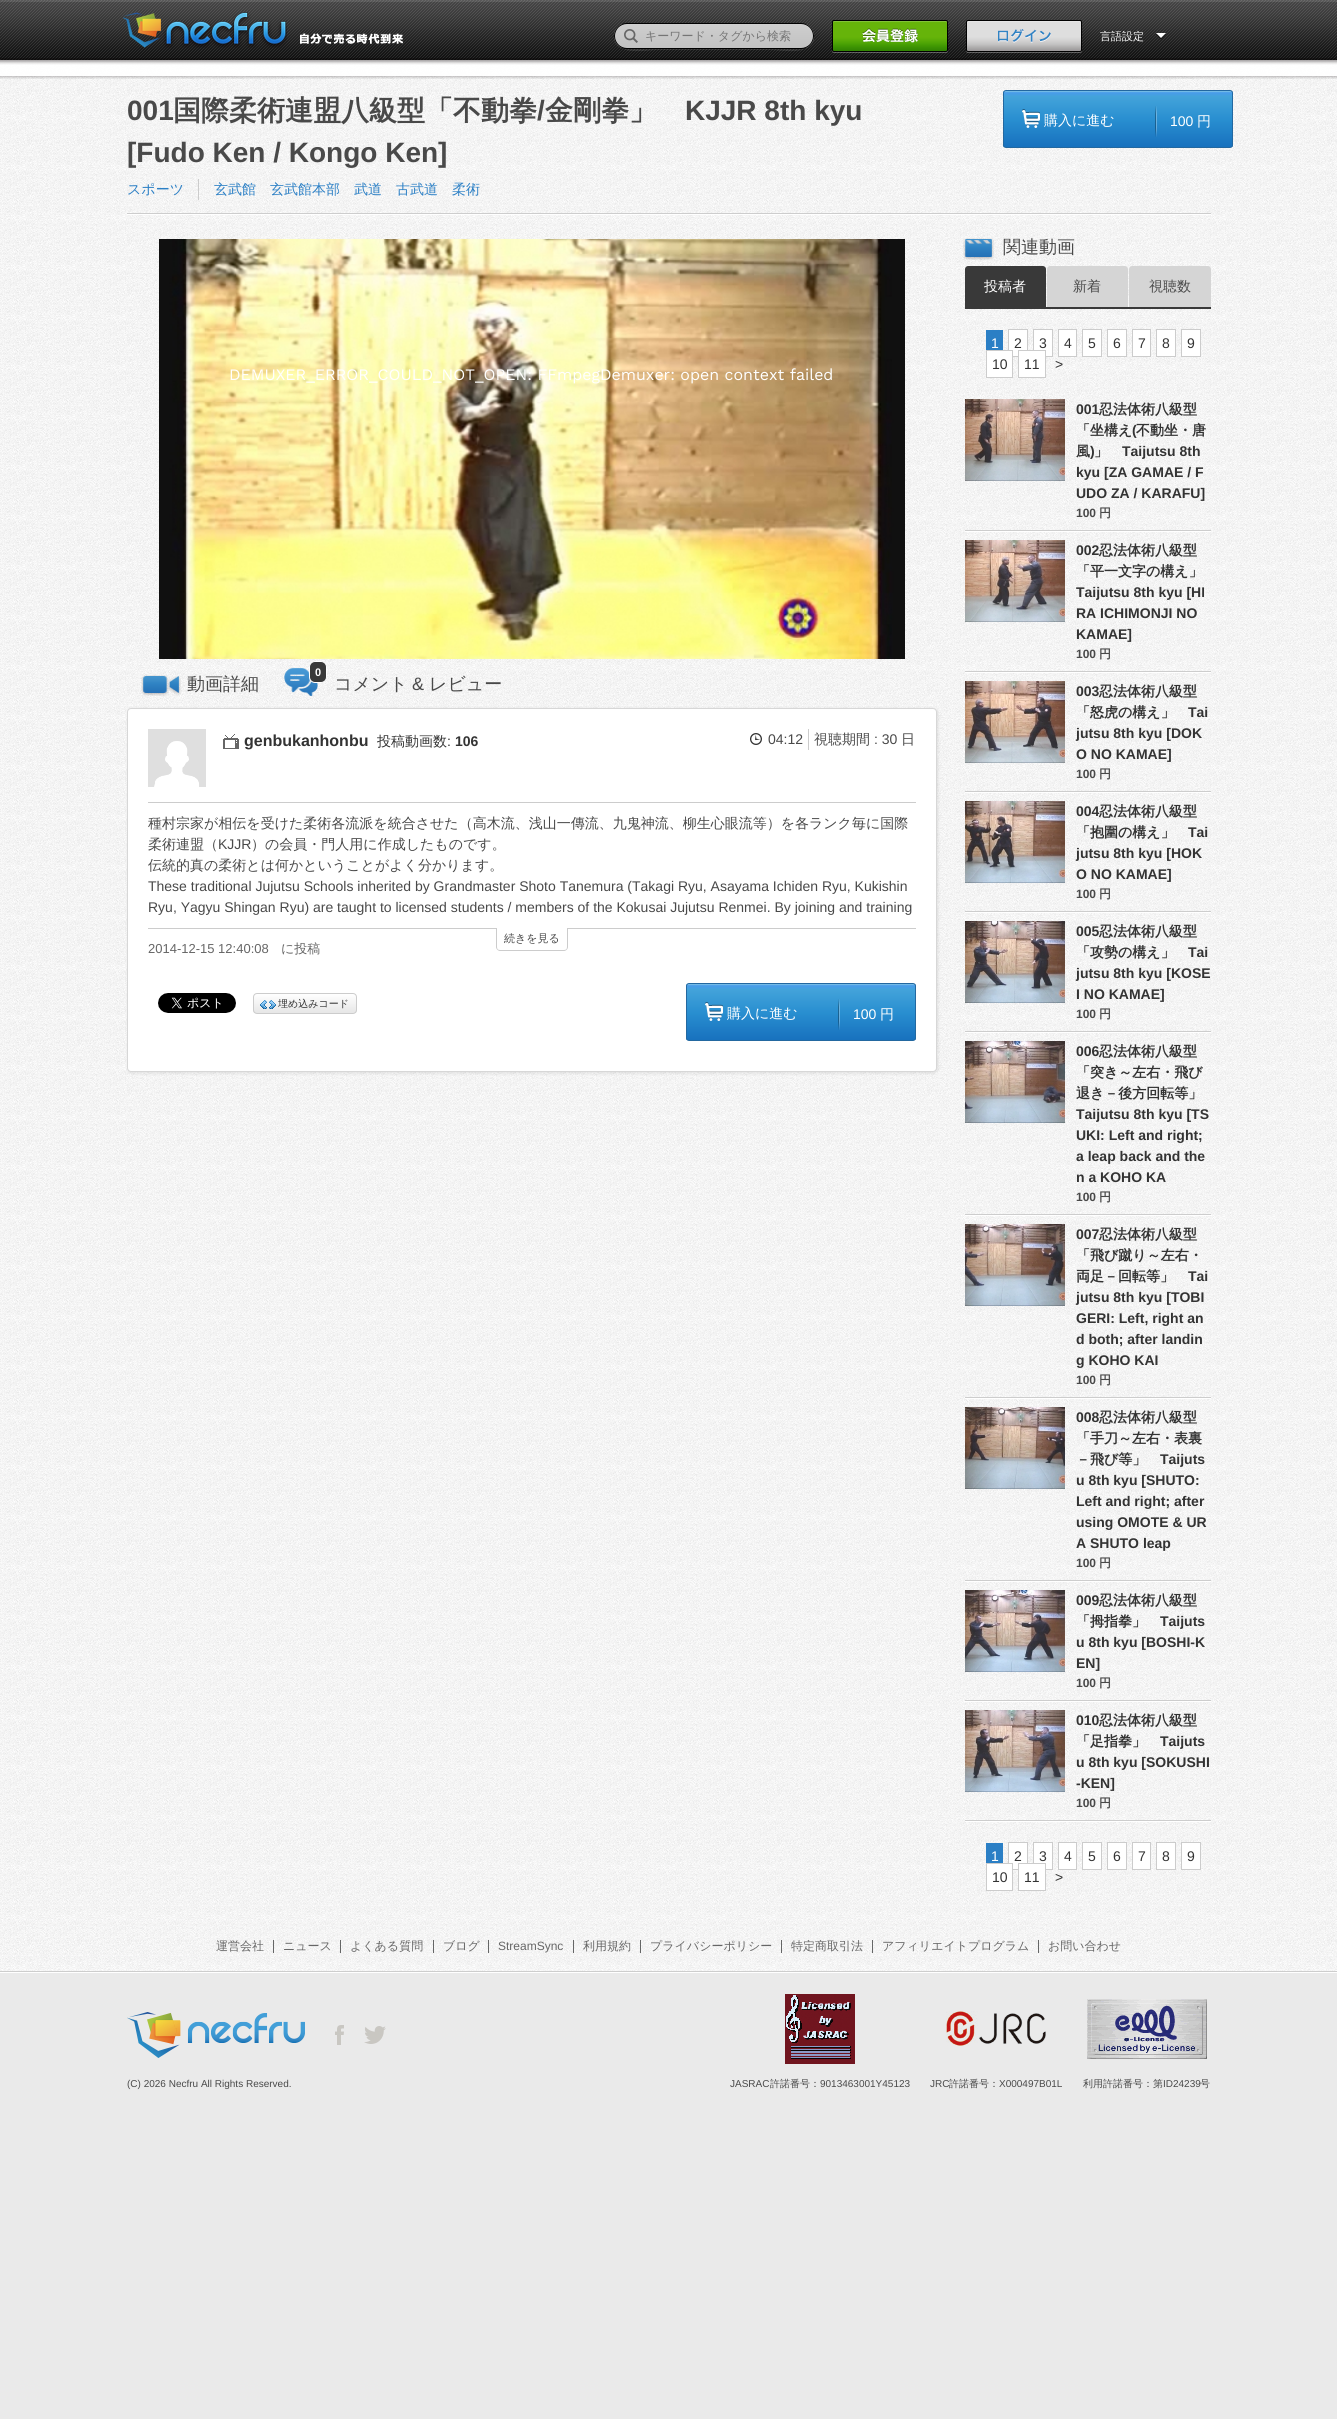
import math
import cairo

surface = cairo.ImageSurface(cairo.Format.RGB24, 1337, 2419)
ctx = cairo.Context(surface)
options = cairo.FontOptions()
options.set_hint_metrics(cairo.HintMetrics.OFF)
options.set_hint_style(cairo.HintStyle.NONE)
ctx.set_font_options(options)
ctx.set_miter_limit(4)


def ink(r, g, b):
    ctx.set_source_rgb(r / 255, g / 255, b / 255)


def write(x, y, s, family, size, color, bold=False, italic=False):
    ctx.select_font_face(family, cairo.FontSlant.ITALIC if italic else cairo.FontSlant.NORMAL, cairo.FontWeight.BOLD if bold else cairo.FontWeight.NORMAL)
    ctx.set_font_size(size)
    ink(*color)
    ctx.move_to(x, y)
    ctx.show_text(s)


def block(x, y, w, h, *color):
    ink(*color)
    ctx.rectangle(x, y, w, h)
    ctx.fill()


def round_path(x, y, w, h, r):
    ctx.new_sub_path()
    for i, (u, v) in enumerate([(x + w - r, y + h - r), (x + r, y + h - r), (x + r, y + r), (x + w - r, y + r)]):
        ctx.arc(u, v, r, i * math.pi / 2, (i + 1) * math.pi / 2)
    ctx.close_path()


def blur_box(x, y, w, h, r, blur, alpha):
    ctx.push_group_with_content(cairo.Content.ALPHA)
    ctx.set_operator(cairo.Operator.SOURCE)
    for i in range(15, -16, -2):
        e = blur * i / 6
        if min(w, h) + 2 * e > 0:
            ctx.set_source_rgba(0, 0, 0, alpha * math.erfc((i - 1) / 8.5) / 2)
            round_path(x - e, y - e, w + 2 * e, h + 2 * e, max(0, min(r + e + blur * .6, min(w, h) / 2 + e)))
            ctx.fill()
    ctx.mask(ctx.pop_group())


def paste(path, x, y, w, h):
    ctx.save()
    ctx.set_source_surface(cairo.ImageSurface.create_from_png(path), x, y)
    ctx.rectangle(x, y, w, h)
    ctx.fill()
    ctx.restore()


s1 = dict(family="WenQuanYi Zen Hei Medium", size=12, color=(117, 117, 117))
s2 = dict(family="WenQuanYi Zen Hei Medium", size=11, color=(255, 255, 255))
s3 = dict(family="Liberation Sans", size=28, color=(73, 73, 73), bold=True)
s4 = dict(family="WenQuanYi Zen Hei", size=28, color=(73, 73, 73), bold=True)
s5 = dict(family="WenQuanYi Zen Hei Medium", size=14, color=(43, 127, 197))
s6 = dict(family="WenQuanYi Zen Hei Medium", size=14, color=(255, 255, 255))
s7 = dict(family="Liberation Sans", size=14, color=(255, 255, 255))
s8 = dict(family="Work Sans", size=16, color=(255, 255, 255))
s9 = dict(family="WenQuanYi Zen Hei Medium", size=18, color=(73, 73, 73))
s10 = dict(family="Liberation Sans", size=11, color=(255, 255, 255), bold=True)
s11 = dict(family="Liberation Sans", size=18, color=(73, 73, 73))
s12 = dict(family="Liberation Sans", size=16, color=(51, 51, 51), bold=True)
s13 = dict(family="WenQuanYi Zen Hei Medium", size=14, color=(51, 51, 51))
s14 = dict(family="Liberation Sans", size=14, color=(51, 51, 51))
s15 = dict(family="Liberation Sans", size=14, color=(51, 51, 51), bold=True)
s16 = dict(family="Liberation Sans", size=14, color=(73, 73, 73))
s17 = dict(family="WenQuanYi Zen Hei Medium", size=14, color=(73, 73, 73))
s18 = dict(family="WenQuanYi Zen Hei Medium", size=11, color=(73, 73, 73))
s19 = dict(family="Liberation Sans", size=13, color=(102, 102, 102))
s20 = dict(family="WenQuanYi Zen Hei Medium", size=13, color=(102, 102, 102))
s21 = dict(family="WenQuanYi Zen Hei Medium", size=10, color=(51, 51, 51))
s22 = dict(family="WenQuanYi Zen Hei", size=14, color=(51, 51, 51), bold=True)
s23 = dict(family="Liberation Sans", size=12, color=(73, 73, 73), bold=True)
s24 = dict(family="WenQuanYi Zen Hei", size=12, color=(73, 73, 73), bold=True)
s25 = dict(family="WenQuanYi Zen Hei Medium", size=12, color=(102, 102, 102))
s26 = dict(family="Liberation Sans", size=12, color=(102, 102, 102))
s27 = dict(family="Liberation Sans", size=10, color=(73, 73, 73))
s28 = dict(family="WenQuanYi Zen Hei Medium", size=10, color=(73, 73, 73))

ink(234, 234, 234)
ctx.paint()
paste("pic8.png", 0, 60, 1337, 1911)
paste("pic7.png", 0, 60, 1337, 19)
paste("pic1.png", 0, 0, 1337, 65)
paste("pic2.png", 123, 12, 280, 36)
ctx.set_source_rgba(1, 1, 1, 0.1)
ctx.new_path()
ctx.move_to(614, 36)
ctx.curve_to(613, 57, 648, 50, 656, 50)
ctx.line_to(772, 50)
ctx.curve_to(780, 50, 815, 57, 814, 36)
ctx.curve_to(814, 43, 808, 49, 801, 49)
ctx.line_to(627, 49)
ctx.curve_to(620, 49, 614, 43, 614, 36)
ctx.close_path()
ctx.fill()
ctx.save()
round_path(614, 23, 200, 26, 13)
ctx.clip()
gradient = cairo.LinearGradient(615, 48, 615, 24)
gradient.add_color_stop_rgba(0, 0.761, 0.761, 0.761, 1)
gradient.add_color_stop_rgba(1, 0.808, 0.808, 0.808, 1)
ctx.set_source(gradient)
ctx.rectangle(614, 24, 200, 24)
ctx.fill()
ctx.restore()
round_path(614.5, 23.5, 199, 25, 12.5)
ink(0, 0, 0)
ctx.set_line_width(1)
ctx.stroke()
paste("pic3.png", 624, 29, 14, 14)
write(645, 40, "キーワード・タグから検索", **s1)
paste("pic4.png", 832, 20, 116, 33)
paste("pic5.png", 966, 20, 116, 33)
paste("pic6.png", 1156, 33, 10, 6)
write(1100, 40, "言語設定", **s2)
block(0, 1971, 1337, 1, 205, 205, 205)
write(127, 120, "001", **s3)
write(173, 120, "国際柔術連盟八級型「不動拳", **s4)
write(537, 120, "/", **s3)
write(545, 120, "金剛拳」", **s4)
write(685, 120, "KJJR 8th kyu", **s3)
write(127, 162, "[Fudo Ken / Kongo Ken]", **s3)
block(198, 179, 1, 21, 204, 204, 204)
write(127, 194, "スポーツ", **s5)
write(214, 194, "玄武館　玄武館本部　武道　古武道　柔術", **s5)
ctx.save()
round_path(1003, 90, 230, 58, 3)
ctx.clip()
gradient = cairo.LinearGradient(1118, 91, 1118, 147)
gradient.add_color_stop_rgba(0, 0.286, 0.608, 0.918, 1)
gradient.add_color_stop_rgba(0.01, 0.467, 0.745, 0.898, 1)
gradient.add_color_stop_rgba(0.03, 0.286, 0.608, 0.918, 1)
gradient.add_color_stop_rgba(0.1, 0.263, 0.639, 0.855, 1)
gradient.add_color_stop_rgba(0.52, 0.157, 0.557, 0.816, 1)
gradient.add_color_stop_rgba(1, 0.094, 0.443, 0.745, 1)
ctx.set_source(gradient)
ctx.rectangle(1003, 91, 230, 56)
ctx.fill()
ctx.restore()
round_path(1003.5, 90.5, 229, 57, 2.5)
ink(35, 104, 160)
ctx.stroke()
paste("pic9.png", 1022, 109, 18, 19)
write(1044, 125, "購入に進む", **s6)
paste("pic10.png", 1155, 106, 2, 31)
write(1170, 126, "100", **s7)
write(1197, 126, "円", **s6)
paste("pic11.png", 127, 213, 1084, 2)
paste("pic12.png", 159, 239, 746, 420)
write(229, 380, "DEMUXER_ERROR_COULD_NOT_OPEN: FFmpegDemuxer: open context failed", **s8)
paste("pic13.png", 141, 675, 40, 21)
write(187, 690, "動画詳細", **s9)
paste("pic14.png", 284, 668, 34, 28)
ink(57, 57, 57)
round_path(309.5, 661.5, 17, 21, 5.5)
ctx.fill_preserve()
ink(255, 255, 255)
ctx.stroke()
write(315, 676, "0", **s10)
write(334, 690, "コメント", **s9)
write(412, 690, "&", **s11)
write(429, 690, "レビュー", **s9)
ink(0, 0, 0)
blur_box(128, 709, 810, 364, 4, 1.5, 0.1)
ink(255, 255, 255)
round_path(127.5, 708.5, 809, 363, 3.5)
ctx.fill_preserve()
ink(215, 215, 215)
ctx.stroke()
block(148, 802, 768, 1, 204, 204, 204)
paste("pic15.png", 148, 729, 58, 58)
paste("pic16.png", 223, 734, 16, 15)
write(244, 746, "genbukanhonbu", **s12)
write(377, 746, "投稿動画数", **s13)
write(447, 746, ":", **s14)
write(455, 746, "106", **s15)
paste("pic17.png", 750, 733, 12, 12)
block(808, 729, 1, 21, 204, 204, 204)
write(768, 744, "04:12", **s16)
write(814, 744, "視聴期間", **s17)
write(874, 744, ": 30", **s16)
write(901, 744, "日", **s17)
block(148, 928, 768, 1, 204, 204, 204)
write(148, 828, "種村宗家が相伝を受けた柔術各流派を統合させた（高木流、浅山一傳流、九鬼神流、柳生心眼流等）を各ランク毎に国際", **s17)
write(148, 849, "柔術連盟（", **s17)
write(218, 849, "KJJR", **s16)
write(251, 849, "）の会員・門人用に作成したものです。", **s17)
write(148, 870, "伝統的真の柔術とは何かということがよく分かります。", **s17)
write(148, 891, "These traditional Jujutsu Schools inherited by Grandmaster Shoto Tanemura (Takagi Ryu, Asayama Ichiden Ryu, Kukishin", **s16)
write(148, 912, "Ryu, Yagyu Shingan Ryu) are taught to licensed students / members of the Kokusai Jujutsu Renmei. By joining and training", **s16)
ink(255, 255, 255)
ctx.new_path()
ctx.move_to(496, 928)
ctx.line_to(568, 928)
ctx.line_to(568, 947)
ctx.curve_to(568, 949, 566, 951, 564, 951)
ctx.line_to(500, 951)
ctx.curve_to(498, 951, 496, 949, 496, 947)
ctx.close_path()
ctx.fill()
ink(204, 204, 204)
ctx.set_fill_rule(cairo.FillRule.EVEN_ODD)
ctx.new_path()
ctx.move_to(496, 928)
ctx.line_to(568, 928)
ctx.line_to(568, 947)
ctx.curve_to(568, 949, 566, 951, 564, 951)
ctx.line_to(500, 951)
ctx.curve_to(498, 951, 496, 949, 496, 947)
ctx.close_path()
ctx.move_to(497, 928)
ctx.line_to(567, 928)
ctx.line_to(567, 947)
ctx.curve_to(567, 949, 566, 950, 564, 950)
ctx.line_to(500, 950)
ctx.curve_to(498, 950, 497, 949, 497, 947)
ctx.close_path()
ctx.fill()
write(504, 942, "続きを見る", **s18)
write(148, 953, "2014-12-15 12:40:08", **s19)
write(281, 953, "に投稿", **s20)
paste("pic18.png", 158, 993, 78, 20)
ctx.save()
ctx.set_fill_rule(cairo.FillRule.WINDING)
round_path(253, 993, 104, 21, 4)
ctx.clip()
gradient = cairo.LinearGradient(305, 994, 305, 1013)
gradient.add_color_stop_rgba(0, 1, 1, 1, 1)
gradient.add_color_stop_rgba(1, 0.902, 0.902, 0.902, 1)
ctx.set_source(gradient)
ctx.rectangle(253, 994, 104, 19)
ctx.fill()
ctx.restore()
round_path(253.5, 993.5, 103, 20, 3.5)
ink(204, 204, 204)
ctx.stroke()
paste("pic19.png", 260, 1000, 16, 9)
write(278, 1007, "埋め込みコード", **s21)
ctx.save()
ctx.set_fill_rule(cairo.FillRule.WINDING)
round_path(686, 983, 230, 58, 3)
ctx.clip()
gradient = cairo.LinearGradient(801, 984, 801, 1040)
gradient.add_color_stop_rgba(0, 0.286, 0.608, 0.918, 1)
gradient.add_color_stop_rgba(0.01, 0.467, 0.745, 0.898, 1)
gradient.add_color_stop_rgba(0.03, 0.286, 0.608, 0.918, 1)
gradient.add_color_stop_rgba(0.1, 0.263, 0.639, 0.855, 1)
gradient.add_color_stop_rgba(0.52, 0.157, 0.557, 0.816, 1)
gradient.add_color_stop_rgba(1, 0.094, 0.443, 0.745, 1)
ctx.set_source(gradient)
ctx.rectangle(686, 984, 230, 56)
ctx.fill()
ctx.restore()
round_path(686.5, 983.5, 229, 57, 2.5)
ink(35, 104, 160)
ctx.stroke()
paste("pic9.png", 705, 1002, 18, 19)
write(727, 1018, "購入に進む", **s6)
paste("pic10.png", 838, 999, 2, 31)
write(853, 1019, "100", **s7)
write(880, 1019, "円", **s6)
paste("pic20.png", 963, 238, 31, 22)
write(1003, 253, "関連動画", **s9)
block(965, 307, 246, 2, 57, 57, 57)
ctx.new_path()
ctx.move_to(968, 266)
ctx.line_to(1043, 266)
ctx.curve_to(1044.5, 266, 1046, 267.5, 1046, 269)
ctx.line_to(1046, 307)
ctx.line_to(965, 307)
ctx.line_to(965, 269)
ctx.curve_to(965, 267.5, 966.5, 266, 968, 266)
ctx.close_path()
ctx.fill()
write(984, 291, "投稿者", **s6)
ink(213, 213, 213)
ctx.new_path()
ctx.move_to(1050, 266)
ctx.line_to(1125, 266)
ctx.curve_to(1126.5, 266, 1128, 267.5, 1128, 269)
ctx.line_to(1128, 307)
ctx.line_to(1047, 307)
ctx.line_to(1047, 269)
ctx.curve_to(1047, 267.5, 1048.5, 266, 1050, 266)
ctx.close_path()
ctx.fill()
write(1073, 291, "新着", **s17)
ink(213, 213, 213)
ctx.new_path()
ctx.move_to(1132, 266)
ctx.line_to(1208, 266)
ctx.curve_to(1209.5, 266, 1211, 267.5, 1211, 269)
ctx.line_to(1211, 307)
ctx.line_to(1129, 307)
ctx.line_to(1129, 269)
ctx.curve_to(1129, 267.5, 1130.5, 266, 1132, 266)
ctx.close_path()
ctx.fill()
write(1149, 291, "視聴数", **s17)
block(986, 330, 17, 20, 43, 127, 197)
write(991, 348, "1", **s7)
ctx.rectangle(1008.5, 329.5, 19, 27)
ctx.fill_preserve()
ink(204, 204, 204)
ctx.stroke()
write(1014, 348, "2", **s14)
ink(255, 255, 255)
ctx.rectangle(1033.5, 329.5, 19, 27)
ctx.fill_preserve()
ink(204, 204, 204)
ctx.stroke()
write(1039, 348, "3", **s14)
ink(255, 255, 255)
ctx.rectangle(1058.5, 329.5, 18, 27)
ctx.fill_preserve()
ink(204, 204, 204)
ctx.stroke()
write(1064, 348, "4", **s14)
ink(255, 255, 255)
ctx.rectangle(1082.5, 329.5, 19, 27)
ctx.fill_preserve()
ink(204, 204, 204)
ctx.stroke()
write(1088, 348, "5", **s14)
ink(255, 255, 255)
ctx.rectangle(1107.5, 329.5, 19, 27)
ctx.fill_preserve()
ink(204, 204, 204)
ctx.stroke()
write(1113, 348, "6", **s14)
ink(255, 255, 255)
ctx.rectangle(1132.5, 329.5, 18, 27)
ctx.fill_preserve()
ink(204, 204, 204)
ctx.stroke()
write(1138, 348, "7", **s14)
ink(255, 255, 255)
ctx.rectangle(1156.5, 329.5, 19, 27)
ctx.fill_preserve()
ink(204, 204, 204)
ctx.stroke()
write(1162, 348, "8", **s14)
ink(255, 255, 255)
ctx.rectangle(1181.5, 329.5, 19, 27)
ctx.fill_preserve()
ink(204, 204, 204)
ctx.stroke()
write(1187, 348, "9", **s14)
ink(255, 255, 255)
ctx.rectangle(986.5, 350.5, 26, 27)
ctx.fill_preserve()
ink(204, 204, 204)
ctx.stroke()
write(992, 369, "10", **s14)
ink(255, 255, 255)
ctx.rectangle(1018.5, 350.5, 27, 27)
ctx.fill_preserve()
ink(204, 204, 204)
ctx.stroke()
write(1024, 369, "11", **s14)
write(1055, 369, ">", **s14)
paste("pic21.png", 965, 530, 246, 2)
paste("pic22.png", 965, 399, 100, 82)
write(1076, 414, "001", **s15)
write(1099, 414, "忍法体術八級型", **s22)
write(1076, 435, "「坐構え", **s22)
write(1132, 435, "(", **s15)
write(1136, 435, "不動坐・唐", **s22)
write(1076, 456, "風", **s22)
write(1090, 456, ")", **s15)
write(1094, 456, "」", **s22)
write(1122, 456, "Taijutsu 8th", **s15)
write(1076, 477, "kyu [ZA GAMAE / F", **s15)
write(1076, 498, "UDO ZA / KARAFU]", **s15)
write(1076, 517, "100", **s23)
write(1099, 517, "円", **s24)
paste("pic21.png", 965, 671, 246, 2)
paste("pic23.png", 965, 540, 100, 82)
write(1076, 555, "002", **s15)
write(1099, 555, "忍法体術八級型", **s22)
write(1076, 576, "「平一文字の構え」", **s22)
write(1076, 597, "Taijutsu 8th kyu [HI", **s15)
write(1076, 618, "RA ICHIMONJI NO", **s15)
write(1076, 639, "KAMAE]", **s15)
write(1076, 658, "100", **s23)
write(1099, 658, "円", **s24)
paste("pic21.png", 965, 791, 246, 2)
paste("pic24.png", 965, 681, 100, 82)
write(1076, 696, "003", **s15)
write(1099, 696, "忍法体術八級型", **s22)
write(1076, 717, "「怒虎の構え」", **s22)
write(1188, 717, "Tai", **s15)
write(1076, 738, "jutsu 8th kyu [DOK", **s15)
write(1076, 759, "O NO KAMAE]", **s15)
write(1076, 778, "100", **s23)
write(1099, 778, "円", **s24)
paste("pic21.png", 965, 911, 246, 2)
paste("pic25.png", 965, 801, 100, 82)
write(1076, 816, "004", **s15)
write(1099, 816, "忍法体術八級型", **s22)
write(1076, 837, "「抱圍の構え」", **s22)
write(1188, 837, "Tai", **s15)
write(1076, 858, "jutsu 8th kyu [HOK", **s15)
write(1076, 879, "O NO KAMAE]", **s15)
write(1076, 898, "100", **s23)
write(1099, 898, "円", **s24)
paste("pic21.png", 965, 1031, 246, 2)
paste("pic26.png", 965, 921, 100, 82)
write(1076, 936, "005", **s15)
write(1099, 936, "忍法体術八級型", **s22)
write(1076, 957, "「攻勢の構え」", **s22)
write(1188, 957, "Tai", **s15)
write(1076, 978, "jutsu 8th kyu [KOSE", **s15)
write(1076, 999, "I NO KAMAE]", **s15)
write(1076, 1018, "100", **s23)
write(1099, 1018, "円", **s24)
paste("pic21.png", 965, 1214, 246, 2)
paste("pic27.png", 965, 1041, 100, 82)
write(1076, 1056, "006", **s15)
write(1099, 1056, "忍法体術八級型", **s22)
write(1076, 1077, "「突き～左右・飛び", **s22)
write(1076, 1098, "退き－後方回転等」", **s22)
write(1076, 1119, "Taijutsu 8th kyu [TS", **s15)
write(1076, 1140, "UKI: Left and right;", **s15)
write(1076, 1161, "a leap back and the", **s15)
write(1076, 1182, "n a KOHO KA", **s15)
write(1076, 1201, "100", **s23)
write(1099, 1201, "円", **s24)
paste("pic21.png", 965, 1397, 246, 2)
paste("pic28.png", 965, 1224, 100, 82)
write(1076, 1239, "007", **s15)
write(1099, 1239, "忍法体術八級型", **s22)
write(1076, 1260, "「飛び蹴り～左右・", **s22)
write(1076, 1281, "両足－回転等」", **s22)
write(1188, 1281, "Tai", **s15)
write(1076, 1302, "jutsu 8th kyu [TOBI", **s15)
write(1076, 1323, "GERI: Left, right an", **s15)
write(1076, 1344, "d both; after landin", **s15)
write(1076, 1365, "g KOHO KAI", **s15)
write(1076, 1384, "100", **s23)
write(1099, 1384, "円", **s24)
paste("pic21.png", 965, 1580, 246, 2)
paste("pic29.png", 965, 1407, 100, 82)
write(1076, 1422, "008", **s15)
write(1099, 1422, "忍法体術八級型", **s22)
write(1076, 1443, "「手刀～左右・表裏", **s22)
write(1076, 1464, "－飛び等」", **s22)
write(1160, 1464, "Taijuts", **s15)
write(1076, 1485, "u 8th kyu [SHUTO:", **s15)
write(1076, 1506, "Left and right; after", **s15)
write(1076, 1527, "using OMOTE & UR", **s15)
write(1076, 1548, "A SHUTO leap", **s15)
write(1076, 1567, "100", **s23)
write(1099, 1567, "円", **s24)
paste("pic21.png", 965, 1700, 246, 2)
paste("pic30.png", 965, 1590, 100, 82)
write(1076, 1605, "009", **s15)
write(1099, 1605, "忍法体術八級型", **s22)
write(1076, 1626, "「拇指拳」", **s22)
write(1160, 1626, "Taijuts", **s15)
write(1076, 1647, "u 8th kyu [BOSHI-K", **s15)
write(1076, 1668, "EN]", **s15)
write(1076, 1687, "100", **s23)
write(1099, 1687, "円", **s24)
paste("pic21.png", 965, 1820, 246, 2)
paste("pic31.png", 965, 1710, 100, 82)
write(1076, 1725, "010", **s15)
write(1099, 1725, "忍法体術八級型", **s22)
write(1076, 1746, "「足指拳」", **s22)
write(1160, 1746, "Taijuts", **s15)
write(1076, 1767, "u 8th kyu [SOKUSHI", **s15)
write(1076, 1788, "-KEN]", **s15)
write(1076, 1807, "100", **s23)
write(1099, 1807, "円", **s24)
block(986, 1843, 17, 20, 43, 127, 197)
write(991, 1861, "1", **s7)
ctx.rectangle(1008.5, 1842.5, 19, 27)
ctx.fill_preserve()
ink(204, 204, 204)
ctx.stroke()
write(1014, 1861, "2", **s14)
ink(255, 255, 255)
ctx.rectangle(1033.5, 1842.5, 19, 27)
ctx.fill_preserve()
ink(204, 204, 204)
ctx.stroke()
write(1039, 1861, "3", **s14)
ink(255, 255, 255)
ctx.rectangle(1058.5, 1842.5, 18, 27)
ctx.fill_preserve()
ink(204, 204, 204)
ctx.stroke()
write(1064, 1861, "4", **s14)
ink(255, 255, 255)
ctx.rectangle(1082.5, 1842.5, 19, 27)
ctx.fill_preserve()
ink(204, 204, 204)
ctx.stroke()
write(1088, 1861, "5", **s14)
ink(255, 255, 255)
ctx.rectangle(1107.5, 1842.5, 19, 27)
ctx.fill_preserve()
ink(204, 204, 204)
ctx.stroke()
write(1113, 1861, "6", **s14)
ink(255, 255, 255)
ctx.rectangle(1132.5, 1842.5, 18, 27)
ctx.fill_preserve()
ink(204, 204, 204)
ctx.stroke()
write(1138, 1861, "7", **s14)
ink(255, 255, 255)
ctx.rectangle(1156.5, 1842.5, 19, 27)
ctx.fill_preserve()
ink(204, 204, 204)
ctx.stroke()
write(1162, 1861, "8", **s14)
ink(255, 255, 255)
ctx.rectangle(1181.5, 1842.5, 19, 27)
ctx.fill_preserve()
ink(204, 204, 204)
ctx.stroke()
write(1187, 1861, "9", **s14)
ink(255, 255, 255)
ctx.rectangle(986.5, 1863.5, 26, 27)
ctx.fill_preserve()
ink(204, 204, 204)
ctx.stroke()
write(992, 1882, "10", **s14)
ink(255, 255, 255)
ctx.rectangle(1018.5, 1863.5, 27, 27)
ctx.fill_preserve()
ink(204, 204, 204)
ctx.stroke()
write(1024, 1882, "11", **s14)
write(1055, 1882, ">", **s14)
write(216, 1950, "運営会社", **s25)
block(273, 1940, 1, 13, 101, 102, 102)
write(283, 1950, "ニュース", **s25)
block(340, 1940, 1, 13, 101, 102, 102)
write(350, 1950, "よくある質問", **s25)
block(433, 1940, 1, 13, 101, 102, 102)
write(443, 1950, "ブログ", **s25)
block(488, 1940, 1, 13, 101, 102, 102)
write(498, 1950, "StreamSync", **s26)
block(573, 1940, 1, 13, 101, 102, 102)
write(583, 1950, "利用規約", **s25)
block(640, 1940, 1, 13, 101, 102, 102)
write(650, 1950, "プライバシーポリシー", **s25)
block(781, 1940, 1, 13, 101, 102, 102)
write(791, 1950, "特定商取引法", **s25)
block(872, 1940, 1, 13, 101, 102, 102)
write(882, 1950, "アフィリエイトプログラム", **s25)
block(1038, 1940, 1, 13, 101, 102, 102)
write(1048, 1950, "お問い合わせ", **s25)
block(0, 1972, 1337, 1, 255, 255, 255)
paste("pic32.png", 127, 2012, 178, 46)
paste("pic33.png", 335, 2025, 9, 20)
paste("pic34.png", 364, 2026, 22, 18)
write(127, 2087, "(C) 2026 Necfru All Rights Reserved.", **s27)
paste("pic35.png", 785, 1994, 70, 70)
write(730, 2087, "JASRAC", **s27)
write(770, 2087, "許諾番号：", **s28)
write(820, 2087, "9013463001Y45123", **s27)
paste("pic36.png", 946, 2011, 100, 35)
write(930, 2087, "JRC", **s27)
write(949, 2087, "許諾番号：", **s28)
write(999, 2087, "X000497B01L", **s27)
paste("pic37.png", 1087, 1999, 120, 60)
write(1083, 2087, "利用許諾番号：第", **s28)
write(1163, 2087, "ID24239", **s27)
write(1200, 2087, "号", **s28)
surface.write_to_png("screenshot.png")
